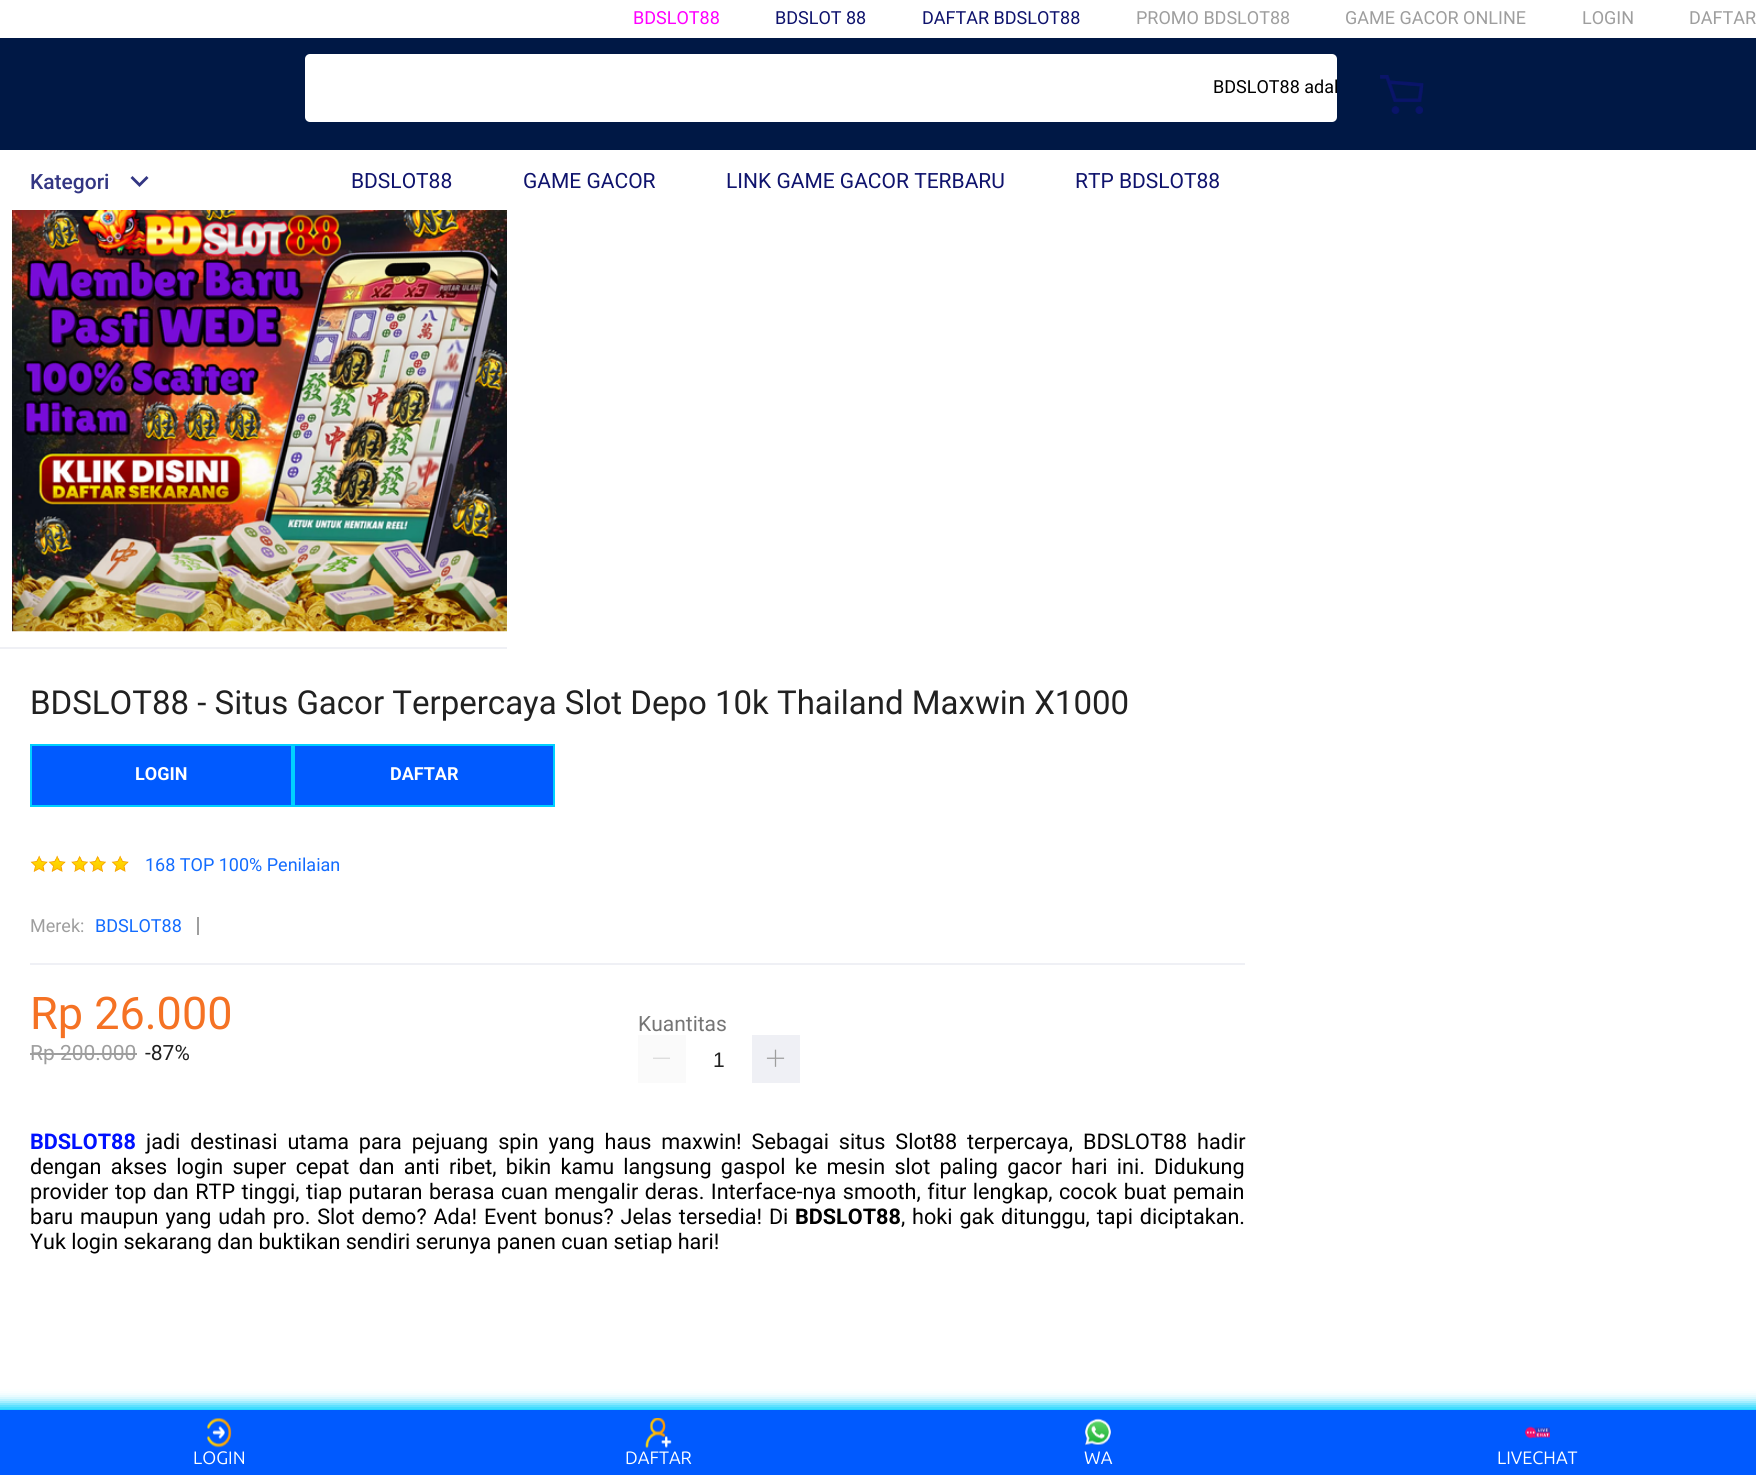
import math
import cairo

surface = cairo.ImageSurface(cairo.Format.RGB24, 1756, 1475)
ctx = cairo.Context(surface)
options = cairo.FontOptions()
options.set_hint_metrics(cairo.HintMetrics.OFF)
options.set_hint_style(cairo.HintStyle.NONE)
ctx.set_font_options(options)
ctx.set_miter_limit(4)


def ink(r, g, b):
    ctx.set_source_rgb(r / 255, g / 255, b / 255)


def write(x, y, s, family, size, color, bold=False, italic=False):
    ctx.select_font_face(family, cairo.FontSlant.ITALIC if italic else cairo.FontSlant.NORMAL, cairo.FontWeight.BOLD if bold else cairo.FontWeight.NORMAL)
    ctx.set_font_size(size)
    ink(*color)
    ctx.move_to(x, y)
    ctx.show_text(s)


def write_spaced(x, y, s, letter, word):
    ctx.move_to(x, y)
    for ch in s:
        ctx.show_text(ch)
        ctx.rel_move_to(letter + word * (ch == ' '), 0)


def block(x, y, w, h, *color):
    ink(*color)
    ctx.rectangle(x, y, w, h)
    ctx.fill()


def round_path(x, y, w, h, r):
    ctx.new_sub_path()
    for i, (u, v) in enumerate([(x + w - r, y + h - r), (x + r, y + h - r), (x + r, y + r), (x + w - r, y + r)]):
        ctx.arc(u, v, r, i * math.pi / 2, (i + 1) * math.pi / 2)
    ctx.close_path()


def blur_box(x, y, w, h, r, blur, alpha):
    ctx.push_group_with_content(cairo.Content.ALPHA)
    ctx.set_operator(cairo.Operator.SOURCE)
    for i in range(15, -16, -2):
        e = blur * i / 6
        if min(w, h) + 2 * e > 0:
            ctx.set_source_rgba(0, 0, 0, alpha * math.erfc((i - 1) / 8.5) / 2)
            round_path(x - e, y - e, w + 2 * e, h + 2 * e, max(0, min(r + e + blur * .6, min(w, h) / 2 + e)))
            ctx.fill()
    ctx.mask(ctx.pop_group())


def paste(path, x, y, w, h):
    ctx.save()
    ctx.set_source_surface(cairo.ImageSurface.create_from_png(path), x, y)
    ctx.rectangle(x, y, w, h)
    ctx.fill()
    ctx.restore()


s1 = dict(family="Roboto", size=18, color=(255, 0, 255))
s2 = dict(family="Roboto", size=18, color=(15, 19, 109))
s3 = dict(family="Roboto", size=18, color=(158, 158, 158))
s4 = dict(family="Roboto", size=18, color=(0, 0, 0))
s5 = dict(family="Roboto Medium", size=21, color=(51, 54, 131))
s6 = dict(family="Roboto", size=21, color=(15, 19, 109))
s7 = dict(family="Roboto", size=33, color=(33, 33, 33))
s8 = dict(family="Roboto", size=18, color=(255, 255, 255), bold=True)
s9 = dict(family="Roboto", size=18, color=(19, 108, 255))
s10 = dict(family="Roboto", size=45, color=(245, 114, 36))
s11 = dict(family="Roboto", size=21, color=(158, 158, 158))
s12 = dict(family="Roboto", size=21, color=(33, 33, 33))
s13 = dict(family="Roboto", size=21, color=(117, 117, 117))
s14 = dict(family="Liberation Sans", size=21, color=(33, 33, 33))
s15 = dict(family="Roboto", size=21.6, color=(0, 17, 255), bold=True)
s16 = dict(family="Roboto", size=21.6, color=(0, 0, 0), bold=True)
s17 = dict(family="Roboto", size=21.6, color=(0, 0, 0))
s18 = dict(family="Ubuntu", size=18, color=(255, 255, 255))

ink(255, 255, 255)
ctx.paint()
write(633, 24, "BDSLOT88", **s1)
write(775, 24, "BDSLOT 88", **s2)
write(922, 24, "DAFTAR BDSLOT88", **s2)
write(1136, 24, "PROMO BDSLOT88", **s3)
write(1345, 24, "GAME GACOR ONLINE", **s3)
write(1582, 24, "LOGIN", **s3)
write(1689, 24, "DAFTAR", **s3)
block(0, 38, 1756, 112, 0, 24, 69)
ink(255, 255, 255)
round_path(305, 54, 1032, 68, 5)
ctx.fill()
write(1213, 93, "BDSLOT88 adal", **s4)
paste("pic1.png", 1380, 75, 44, 39)
write(30, 189, "Kategori", **s5)
ctx.new_path()
ctx.move_to(146.5, 176)
ctx.line_to(148.5, 178)
ctx.line_to(139.5, 187)
ctx.line_to(130.5, 178)
ctx.line_to(132.5, 176)
ctx.line_to(139.5, 183)
ctx.close_path()
ctx.fill()
write(351, 188, "BDSLOT88", **s6)
write(523, 188, "GAME GACOR", **s6)
write(726, 188, "LINK GAME GACOR TERBARU", **s6)
write(1075, 188, "RTP BDSLOT88", **s6)
block(0, 647, 507, 2, 239, 240, 245)
paste("pic2.png", 12, 210, 495, 422)
write(30, 714, "BDSLOT88 - Situs Gacor Terpercaya Slot Depo 10k Thailand Maxwin X1000", **s7)
ink(0, 90, 255)
ctx.rectangle(31, 745, 261, 61)
ctx.fill_preserve()
ink(0, 208, 255)
ctx.stroke()
write(135, 780, "LOGIN", **s8)
ink(0, 90, 255)
ctx.rectangle(294, 745, 260, 61)
ctx.fill_preserve()
ink(0, 208, 255)
ctx.stroke()
write(390, 780, "DAFTAR", **s8)
paste("pic3.png", 30, 855, 18, 17)
paste("pic3.png", 48, 855, 18, 17)
paste("pic4.png", 71, 855, 17, 17)
paste("pic4.png", 89, 855, 17, 17)
paste("pic3.png", 111, 855, 18, 17)
write(145, 871, "168 TOP 100% Penilaian", **s9)
block(30, 963, 1215, 2, 239, 240, 245)
write(30, 932, "Merek:", **s3)
write(95, 932, "BDSLOT88", **s9)
block(197, 917, 2, 18, 158, 158, 158)
write(30, 1029, "Rp 26.000", **s10)
write(30, 1060, "Rp 200.000", **s11)
block(30, 1053, 107, 2, 158, 158, 158)
write(145, 1060, "-87%", **s12)
write(638, 1031, "Kuantitas", **s13)
block(638, 1035, 48, 48, 250, 250, 250)
paste("pic5.png", 653, 1057, 17, 2)
block(752, 1035, 48, 48, 239, 240, 245)
paste("pic6.png", 766, 1049, 19, 18)
write(713, 1067, "1", **s14)
write(30, 1149, "BDSLOT88", **s15)
ctx.select_font_face("Roboto")
ink(0, 0, 0)
write_spaced(146, 1149, "jadi destinasi utama para pejuang spin yang haus maxwin! Sebagai situs Slot88 terpercaya, BDSLOT88 hadir", 0, 4.6)
write_spaced(30, 1174, "dengan akses login super cepat dan anti ribet, bikin kamu langsung gaspol ke mesin slot paling gacor hari ini. Didukung", 0, 3.9)
write_spaced(30, 1199, "provider top dan RTP tinggi, tiap putaran berasa cuan mengalir deras. Interface-nya smooth, fitur lengkap, cocok buat pemain", 0, 1.1)
write_spaced(30, 1224, "baru maupun yang udah pro. Slot demo? Ada! Event bonus? Jelas tersedia! Di", 0, 1.5)
write(795, 1224, "BDSLOT88", **s16)
ctx.select_font_face("Roboto")
write_spaced(901, 1224, ", hoki gak ditunggu, tapi diciptakan.", 0, 1.5)
write(30, 1249, "Yuk login sekarang dan buktikan sendiri serunya panen cuan setiap hari!", **s17)
ink(0, 208, 255)
blur_box(-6, 1404, 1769, 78, 0, 6, 1)
block(0, 1410, 1756, 65, 0, 90, 255)
paste("pic7.png", 207, 1418, 25, 30)
write(193, 1464, "LOGIN", **s18)
paste("pic8.png", 645, 1418, 27, 30)
write(625, 1464, "DAFTAR", **s18)
paste("pic9.png", 1085, 1418, 27, 28)
write(1084, 1464, "WA", **s18)
paste("pic10.png", 1525, 1426, 25, 13)
write(1497, 1464, "LIVECHAT", **s18)
surface.write_to_png("screenshot.png")
